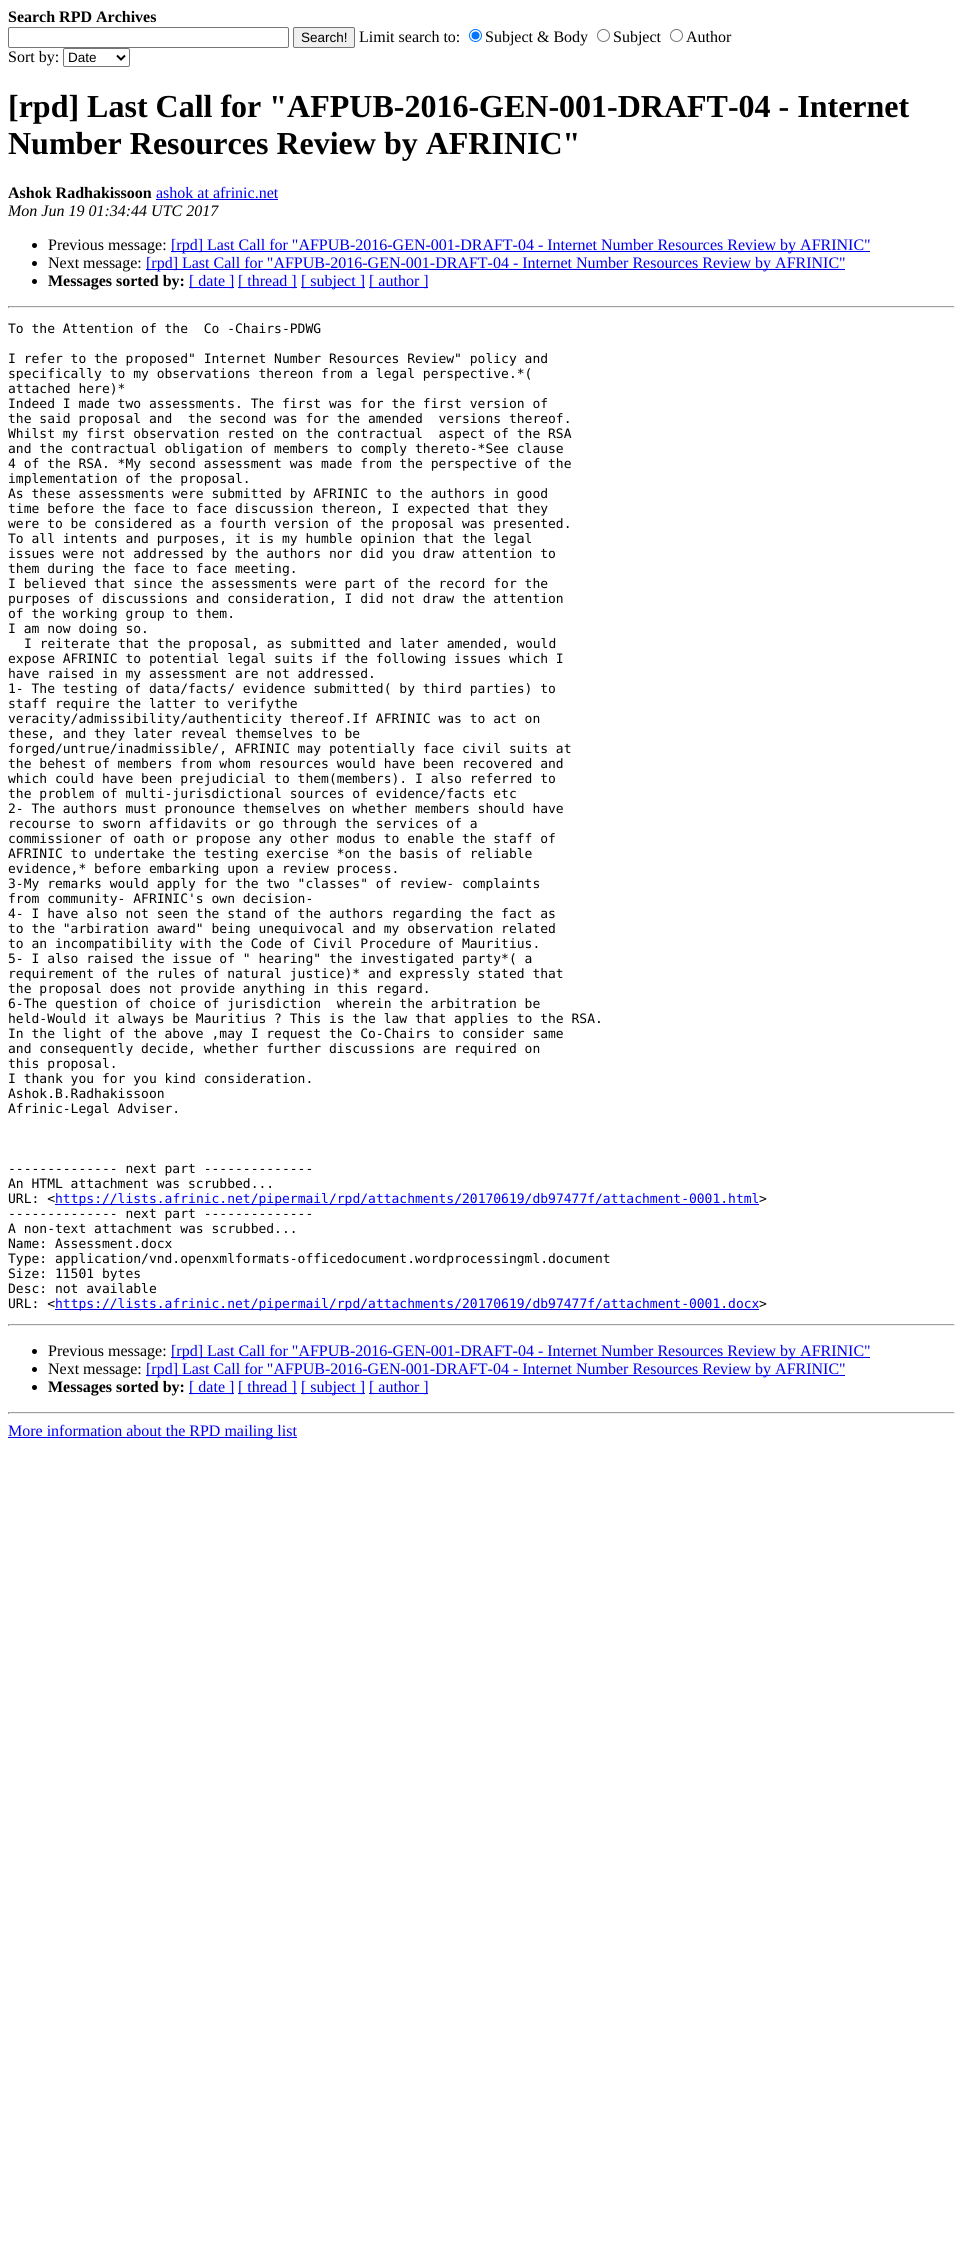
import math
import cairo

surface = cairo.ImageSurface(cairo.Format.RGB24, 963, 2257)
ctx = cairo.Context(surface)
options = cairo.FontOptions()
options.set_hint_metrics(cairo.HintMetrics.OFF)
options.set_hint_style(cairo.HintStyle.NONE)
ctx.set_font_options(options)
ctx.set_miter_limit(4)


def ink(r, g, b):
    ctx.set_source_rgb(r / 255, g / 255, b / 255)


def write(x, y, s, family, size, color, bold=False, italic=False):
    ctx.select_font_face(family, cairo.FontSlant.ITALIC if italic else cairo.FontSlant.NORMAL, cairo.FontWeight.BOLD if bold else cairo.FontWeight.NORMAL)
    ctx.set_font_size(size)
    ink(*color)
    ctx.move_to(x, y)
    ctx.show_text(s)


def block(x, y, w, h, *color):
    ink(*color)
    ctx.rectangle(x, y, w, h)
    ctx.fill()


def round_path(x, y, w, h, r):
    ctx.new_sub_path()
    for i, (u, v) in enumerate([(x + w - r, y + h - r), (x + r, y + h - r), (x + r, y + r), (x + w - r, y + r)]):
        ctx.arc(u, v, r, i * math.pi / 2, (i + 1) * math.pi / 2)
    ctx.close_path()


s1 = dict(family="Liberation Serif", size=16, color=(0, 0, 0), bold=True)
s2 = dict(family="Liberation Sans", size=13.5, color=(0, 0, 0))
s3 = dict(family="Liberation Serif", size=16, color=(0, 0, 0))
s4 = dict(family="Liberation Serif", size=32, color=(0, 0, 0), bold=True)
s5 = dict(family="Liberation Serif", size=16, color=(0, 0, 238))
s6 = dict(family="Liberation Serif", size=16, color=(0, 0, 0), italic=True)
s7 = dict(family="DejaVu Sans Mono", size=13, color=(0, 0, 0))
s8 = dict(family="DejaVu Sans Mono", size=13, color=(0, 0, 238))

ink(255, 255, 255)
ctx.paint()
write(8, 22, "Search RPD Archives", **s1)
round_path(8.5, 27.5, 280, 20, 1.5)
ink(118, 118, 118)
ctx.set_line_width(1)
ctx.stroke()
ink(239, 239, 239)
round_path(293.5, 27.5, 61, 20, 1.5)
ctx.fill_preserve()
ink(118, 118, 118)
ctx.stroke()
write(301, 42, "Search!", **s2)
write(359, 42, "Limit search to:", **s3)
ctx.new_path()
ctx.arc(475.5, 35.5, 6, 0, 2 * math.pi)
ink(0, 117, 255)
ctx.stroke()
ctx.arc(475.5, 35.5, 4, 0, 2 * math.pi)
ctx.fill()
write(485, 42, "Subject & Body", **s3)
ctx.new_path()
ctx.arc(603.5, 35.5, 6, 0, 2 * math.pi)
ink(118, 118, 118)
ctx.stroke()
write(613, 42, "Subject", **s3)
ctx.new_path()
ctx.arc(676.5, 35.5, 6, 0, 2 * math.pi)
ink(118, 118, 118)
ctx.stroke()
write(686, 42, "Author", **s3)
write(8, 62, "Sort by:", **s3)
round_path(63.5, 48.5, 66, 18, 1.5)
ink(118, 118, 118)
ctx.stroke()
ctx.new_path()
ctx.move_to(117, 55.5)
ctx.line_to(121, 59.5)
ctx.line_to(125, 55.5)
ink(0, 0, 0)
ctx.set_line_width(2)
ctx.stroke()
write(68, 62, "Date", **s2)
write(8, 117, "[rpd] Last Call for \"AFPUB-2016-GEN-001-DRAFT-04 - Internet", **s4)
write(8, 154, "Number Resources Review by AFRINIC\"", **s4)
write(8, 198, "Ashok Radhakissoon", **s1)
write(156, 198, "ashok at afrinic.net", **s5)
block(156, 199, 122, 1, 0, 0, 238)
write(8, 216, "Mon Jun 19 01:34:44 UTC 2017", **s6)
ctx.new_path()
ctx.arc(34.5, 245.5, 2.5, 0, 2 * math.pi)
ctx.fill()
write(48, 250, "Previous message:", **s3)
block(171, 251, 699, 1, 0, 0, 238)
write(171, 250, "[rpd] Last Call for \"AFPUB-2016-GEN-001-DRAFT-04 - Internet Number Resources Review by AFRINIC\"", **s5)
ink(0, 0, 0)
ctx.new_path()
ctx.arc(34.5, 263.5, 2.5, 0, 2 * math.pi)
ctx.fill()
write(48, 268, "Next message:", **s3)
block(146, 269, 699, 1, 0, 0, 238)
write(146, 268, "[rpd] Last Call for \"AFPUB-2016-GEN-001-DRAFT-04 - Internet Number Resources Review by AFRINIC\"", **s5)
ink(0, 0, 0)
ctx.new_path()
ctx.arc(34.5, 281.5, 2.5, 0, 2 * math.pi)
ctx.fill()
write(48, 286, "Messages sorted by:", **s1)
block(189, 287, 45, 1, 0, 0, 238)
write(189, 286, "[ date ]", **s5)
block(238, 287, 59, 1, 0, 0, 238)
write(238, 286, "[ thread ]", **s5)
block(301, 287, 64, 1, 0, 0, 238)
write(301, 286, "[ subject ]", **s5)
block(369, 287, 59, 1, 0, 0, 238)
write(369, 286, "[ author ]", **s5)
block(8, 306, 947, 1, 159, 159, 159)
block(954, 306, 1, 2, 238, 238, 238)
block(8, 307, 947, 1, 238, 238, 238)
block(8, 306, 1, 2, 159, 159, 159)
write(8, 333, "To the Attention of the  Co -Chairs-PDWG", **s7)
write(8, 363, "I refer to the proposed\" Internet Number Resources Review\" policy and", **s7)
write(8, 378, "specifically to my observations thereon from a legal perspective.*(", **s7)
write(8, 393, "attached here)*", **s7)
write(8, 408, "Indeed I made two assessments. The first was for the first version of", **s7)
write(8, 423, "the said proposal and  the second was for the amended  versions thereof.", **s7)
write(8, 438, "Whilst my first observation rested on the contractual  aspect of the RSA", **s7)
write(8, 453, "and the contractual obligation of members to comply thereto-*See clause", **s7)
write(8, 468, "4 of the RSA. *My second assessment was made from the perspective of the", **s7)
write(8, 483, "implementation of the proposal.", **s7)
write(8, 498, "As these assessments were submitted by AFRINIC to the authors in good", **s7)
write(8, 513, "time before the face to face discussion thereon, I expected that they", **s7)
write(8, 528, "were to be considered as a fourth version of the proposal was presented.", **s7)
write(8, 543, "To all intents and purposes, it is my humble opinion that the legal", **s7)
write(8, 558, "issues were not addressed by the authors nor did you draw attention to", **s7)
write(8, 573, "them during the face to face meeting.", **s7)
write(8, 588, "I believed that since the assessments were part of the record for the", **s7)
write(8, 603, "purposes of discussions and consideration, I did not draw the attention", **s7)
write(8, 618, "of the working group to them.", **s7)
write(8, 633, "I am now doing so.", **s7)
write(24, 648, "I reiterate that the proposal, as submitted and later amended, would", **s7)
write(8, 663, "expose AFRINIC to potential legal suits if the following issues which I", **s7)
write(8, 678, "have raised in my assessment are not addressed.", **s7)
write(8, 693, "1- The testing of data/facts/ evidence submitted( by third parties) to", **s7)
write(8, 708, "staff require the latter to verifythe", **s7)
write(8, 723, "veracity/admissibility/authenticity thereof.If AFRINIC was to act on", **s7)
write(8, 738, "these, and they later reveal themselves to be", **s7)
write(8, 753, "forged/untrue/inadmissible/, AFRINIC may potentially face civil suits at", **s7)
write(8, 768, "the behest of members from whom resources would have been recovered and", **s7)
write(8, 783, "which could have been prejudicial to them(members). I also referred to", **s7)
write(8, 798, "the problem of multi-jurisdictional sources of evidence/facts etc", **s7)
write(8, 813, "2- The authors must pronounce themselves on whether members should have", **s7)
write(8, 828, "recourse to sworn affidavits or go through the services of a", **s7)
write(8, 843, "commissioner of oath or propose any other modus to enable the staff of", **s7)
write(8, 858, "AFRINIC to undertake the testing exercise *on the basis of reliable", **s7)
write(8, 873, "evidence,* before embarking upon a review process.", **s7)
write(8, 888, "3-My remarks would apply for the two \"classes\" of review- complaints", **s7)
write(8, 903, "from community- AFRINIC's own decision-", **s7)
write(8, 918, "4- I have also not seen the stand of the authors regarding the fact as", **s7)
write(8, 933, "to the \"arbiration award\" being unequivocal and my observation related", **s7)
write(8, 948, "to an incompatibility with the Code of Civil Procedure of Mauritius.", **s7)
write(8, 963, "5- I also raised the issue of \" hearing\" the investigated party*( a", **s7)
write(8, 978, "requirement of the rules of natural justice)* and expressly stated that", **s7)
write(8, 993, "the proposal does not provide anything in this regard.", **s7)
write(8, 1008, "6-The question of choice of jurisdiction  wherein the arbitration be", **s7)
write(8, 1023, "held-Would it always be Mauritius ? This is the law that applies to the RSA.", **s7)
write(8, 1038, "In the light of the above ,may I request the Co-Chairs to consider same", **s7)
write(8, 1053, "and consequently decide, whether further discussions are required on", **s7)
write(8, 1068, "this proposal.", **s7)
write(8, 1083, "I thank you for you kind consideration.", **s7)
write(8, 1098, "Ashok.B.Radhakissoon", **s7)
write(8, 1113, "Afrinic-Legal Adviser.", **s7)
write(8, 1173, "-------------- next part --------------", **s7)
write(8, 1188, "An HTML attachment was scrubbed...", **s7)
write(8, 1203, "URL: <", **s7)
block(55, 1204, 704, 1, 0, 0, 238)
write(55, 1203, "https://lists.afrinic.net/pipermail/rpd/attachments/20170619/db97477f/attachment-0001.html", **s8)
write(759, 1203, ">", **s7)
write(8, 1218, "-------------- next part --------------", **s7)
write(8, 1233, "A non-text attachment was scrubbed...", **s7)
write(8, 1248, "Name: Assessment.docx", **s7)
write(8, 1263, "Type: application/vnd.openxmlformats-officedocument.wordprocessingml.document", **s7)
write(8, 1278, "Size: 11501 bytes", **s7)
write(8, 1293, "Desc: not available", **s7)
write(8, 1308, "URL: <", **s7)
block(55, 1309, 704, 1, 0, 0, 238)
write(55, 1308, "https://lists.afrinic.net/pipermail/rpd/attachments/20170619/db97477f/attachment-0001.docx", **s8)
write(759, 1308, ">", **s7)
block(8, 1324, 947, 1, 159, 159, 159)
block(954, 1324, 1, 2, 238, 238, 238)
block(8, 1325, 947, 1, 238, 238, 238)
block(8, 1324, 1, 2, 159, 159, 159)
ink(0, 0, 0)
ctx.new_path()
ctx.arc(34.5, 1351.5, 2.5, 0, 2 * math.pi)
ctx.fill()
write(48, 1356, "Previous message:", **s3)
block(171, 1357, 699, 1, 0, 0, 238)
write(171, 1356, "[rpd] Last Call for \"AFPUB-2016-GEN-001-DRAFT-04 - Internet Number Resources Review by AFRINIC\"", **s5)
ink(0, 0, 0)
ctx.new_path()
ctx.arc(34.5, 1369.5, 2.5, 0, 2 * math.pi)
ctx.fill()
write(48, 1374, "Next message:", **s3)
block(146, 1375, 699, 1, 0, 0, 238)
write(146, 1374, "[rpd] Last Call for \"AFPUB-2016-GEN-001-DRAFT-04 - Internet Number Resources Review by AFRINIC\"", **s5)
ink(0, 0, 0)
ctx.new_path()
ctx.arc(34.5, 1387.5, 2.5, 0, 2 * math.pi)
ctx.fill()
write(48, 1392, "Messages sorted by:", **s1)
block(189, 1393, 45, 1, 0, 0, 238)
write(189, 1392, "[ date ]", **s5)
block(238, 1393, 59, 1, 0, 0, 238)
write(238, 1392, "[ thread ]", **s5)
block(301, 1393, 64, 1, 0, 0, 238)
write(301, 1392, "[ subject ]", **s5)
block(369, 1393, 59, 1, 0, 0, 238)
write(369, 1392, "[ author ]", **s5)
block(8, 1412, 947, 1, 159, 159, 159)
block(954, 1412, 1, 2, 238, 238, 238)
block(8, 1413, 947, 1, 238, 238, 238)
block(8, 1412, 1, 2, 159, 159, 159)
block(8, 1437, 289, 1, 0, 0, 238)
write(8, 1436, "More information about the RPD mailing list", **s5)
surface.write_to_png("screenshot.png")
